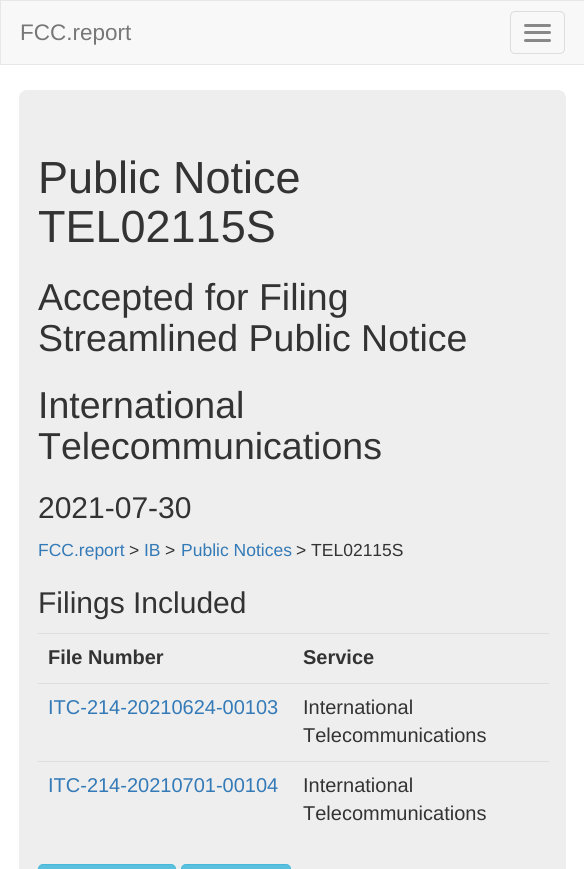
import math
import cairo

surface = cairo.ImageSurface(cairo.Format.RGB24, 584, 869)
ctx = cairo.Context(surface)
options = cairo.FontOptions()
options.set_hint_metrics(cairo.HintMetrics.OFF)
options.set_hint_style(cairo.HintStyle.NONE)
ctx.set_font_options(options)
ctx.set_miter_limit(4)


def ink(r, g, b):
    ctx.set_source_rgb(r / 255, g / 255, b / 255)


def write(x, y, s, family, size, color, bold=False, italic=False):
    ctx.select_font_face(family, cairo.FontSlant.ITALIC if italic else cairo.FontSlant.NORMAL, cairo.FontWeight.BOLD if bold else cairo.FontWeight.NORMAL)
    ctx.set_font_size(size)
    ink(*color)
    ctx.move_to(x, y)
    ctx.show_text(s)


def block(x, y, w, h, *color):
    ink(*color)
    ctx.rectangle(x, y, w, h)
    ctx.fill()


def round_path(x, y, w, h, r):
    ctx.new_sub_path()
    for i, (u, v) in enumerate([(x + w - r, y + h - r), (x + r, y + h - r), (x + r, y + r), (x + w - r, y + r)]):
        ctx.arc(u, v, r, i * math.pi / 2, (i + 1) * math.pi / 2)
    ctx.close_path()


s1 = dict(family="Liberation Sans", size=22.5, color=(119, 119, 119))
s2 = dict(family="Liberation Sans", size=45, color=(51, 51, 51))
s3 = dict(family="Liberation Sans", size=37.5, color=(51, 51, 51))
s4 = dict(family="Liberation Sans", size=30, color=(51, 51, 51))
s5 = dict(family="Liberation Sans", size=17.5, color=(51, 122, 183))
s6 = dict(family="Liberation Sans", size=17.5, color=(51, 51, 51))
s7 = dict(family="Liberation Sans", size=20, color=(51, 51, 51), bold=True)
s8 = dict(family="Liberation Sans", size=20, color=(51, 122, 183))
s9 = dict(family="Liberation Sans", size=20, color=(51, 51, 51))

ink(255, 255, 255)
ctx.paint()
ink(248, 248, 248)
ctx.rectangle(0.5, 0.5, 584, 64)
ctx.fill_preserve()
ink(231, 231, 231)
ctx.set_line_width(1)
ctx.stroke()
write(20, 40, "FCC.report", **s1)
round_path(510.5, 11.5, 54, 42, 4.5)
ink(221, 221, 221)
ctx.stroke()
ink(136, 136, 136)
round_path(524, 24, 27, 3, 1.5)
ctx.fill()
round_path(524, 31, 27, 3, 1.5)
ctx.fill()
round_path(524, 39, 27, 3, 1.5)
ctx.fill()
ink(238, 238, 238)
round_path(19, 90, 547, 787, 8)
ctx.fill()
write(38, 193, "Public Notice", **s2)
write(38, 242, "TEL02115S", **s2)
write(38, 310, "Accepted for Filing", **s3)
write(38, 351, "Streamlined Public Notice", **s3)
write(38, 418, "International", **s3)
write(38, 459, "Telecommunications", **s3)
write(38, 518, "2021-07-30", **s4)
write(38, 556, "FCC.report", **s5)
write(129, 556, ">", **s6)
write(144, 556, "IB", **s5)
write(165, 556, ">", **s6)
write(181, 556, "Public Notices", **s5)
write(296, 556, "> TEL02115S", **s6)
write(38, 613, "Filings Included", **s4)
write(48, 664, "File Number", **s7)
block(38, 633, 511, 1, 221, 221, 221)
write(303, 664, "Service", **s7)
write(48, 714, "ITC-214-20210624-00103", **s8)
block(38, 683, 511, 1, 221, 221, 221)
write(303, 714, "International", **s9)
write(303, 742, "Telecommunications", **s9)
write(48, 792, "ITC-214-20210701-00104", **s8)
block(38, 761, 511, 1, 221, 221, 221)
write(303, 792, "International", **s9)
write(303, 820, "Telecommunications", **s9)
ink(91, 192, 222)
round_path(38.5, 864.5, 137, 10, 4.5)
ctx.fill_preserve()
ink(70, 184, 218)
ctx.stroke()
ink(91, 192, 222)
round_path(181.5, 864.5, 109, 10, 4.5)
ctx.fill_preserve()
ink(70, 184, 218)
ctx.stroke()
surface.write_to_png("screenshot.png")
